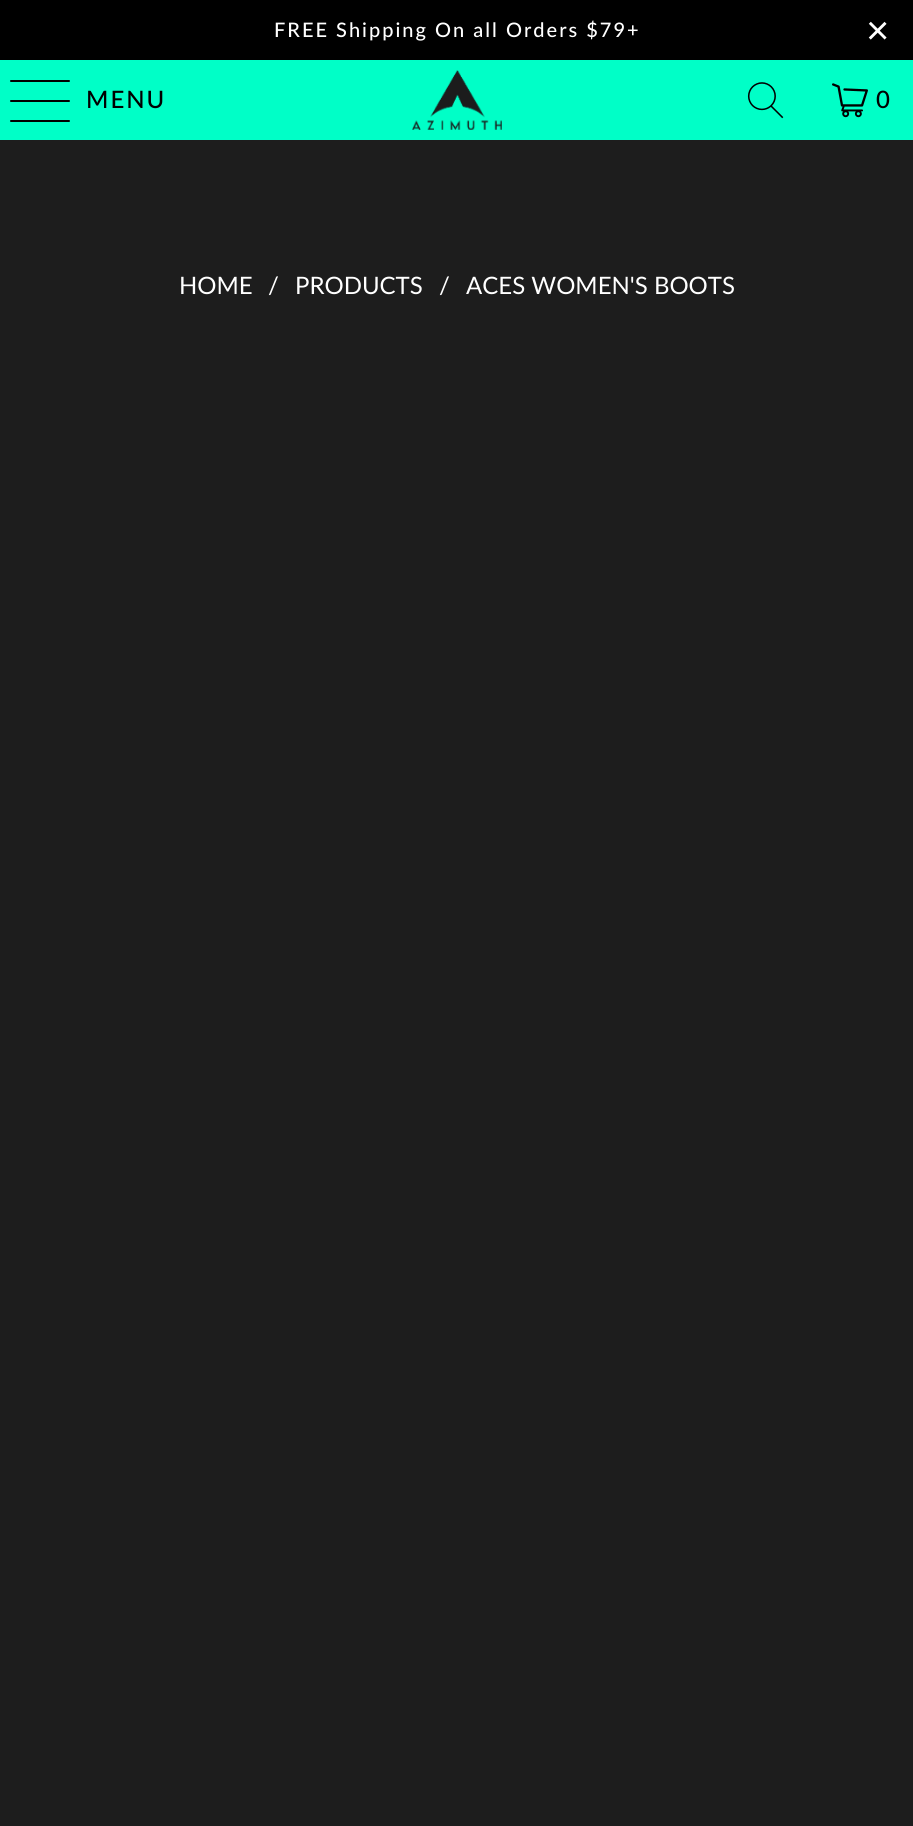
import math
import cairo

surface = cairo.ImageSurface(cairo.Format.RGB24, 913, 1826)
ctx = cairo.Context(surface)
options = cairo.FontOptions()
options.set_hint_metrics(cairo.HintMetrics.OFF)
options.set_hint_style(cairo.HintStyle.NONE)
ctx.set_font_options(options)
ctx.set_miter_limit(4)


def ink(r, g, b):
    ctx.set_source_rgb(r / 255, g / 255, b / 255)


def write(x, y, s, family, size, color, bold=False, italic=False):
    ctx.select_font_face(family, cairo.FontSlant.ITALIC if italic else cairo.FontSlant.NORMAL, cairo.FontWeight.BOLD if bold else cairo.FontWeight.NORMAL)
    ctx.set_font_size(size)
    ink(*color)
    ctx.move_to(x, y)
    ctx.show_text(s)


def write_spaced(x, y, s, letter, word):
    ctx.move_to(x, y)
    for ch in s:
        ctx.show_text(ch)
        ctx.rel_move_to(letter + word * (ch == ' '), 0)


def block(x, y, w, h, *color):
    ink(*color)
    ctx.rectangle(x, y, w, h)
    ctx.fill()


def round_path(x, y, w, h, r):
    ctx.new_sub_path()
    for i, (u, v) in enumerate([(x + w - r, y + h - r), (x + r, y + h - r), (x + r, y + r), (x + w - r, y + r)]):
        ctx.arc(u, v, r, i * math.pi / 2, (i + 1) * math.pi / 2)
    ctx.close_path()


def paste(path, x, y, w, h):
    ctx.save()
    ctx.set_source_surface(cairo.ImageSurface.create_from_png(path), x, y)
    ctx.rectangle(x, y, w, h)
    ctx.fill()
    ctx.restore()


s1 = dict(family="Lato", size=24, color=(255, 255, 255))

ink(29, 29, 29)
ctx.paint()
block(0, 0, 913, 60, 0, 0, 0)
ctx.select_font_face("Lato Medium")
ctx.set_font_size(20)
ink(255, 255, 255)
write_spaced(274, 37, "FREE Shipping On all Orders $79+", 2, 0)
ctx.select_font_face("Liberation Sans")
ctx.set_font_size(40)
write_spaced(866, 44, "×", 2, 0)
block(0, 60, 913, 80, 0, 255, 199)
ink(0, 0, 0)
round_path(10, 80, 60, 2, 1)
ctx.fill()
round_path(10, 100, 60, 2, 1)
ctx.fill()
round_path(10, 120, 60, 2, 1)
ctx.fill()
ctx.select_font_face("Lato Medium")
ctx.set_font_size(24)
write_spaced(86, 108, "MENU", 2, 0)
paste("pic1.png", 412, 70, 90, 60)
paste("pic2.png", 747, 82, 37, 37)
paste("pic3.png", 832, 83, 36, 35)
write_spaced(876, 108, "0", 2, 0)
write(179, 294, "HOME", **s1)
write(268, 294, "/", **s1)
write(295, 294, "PRODUCTS", **s1)
write(439, 294, "/", **s1)
write(466, 294, "ACES WOMEN'S BOOTS", **s1)
surface.write_to_png("screenshot.png")
